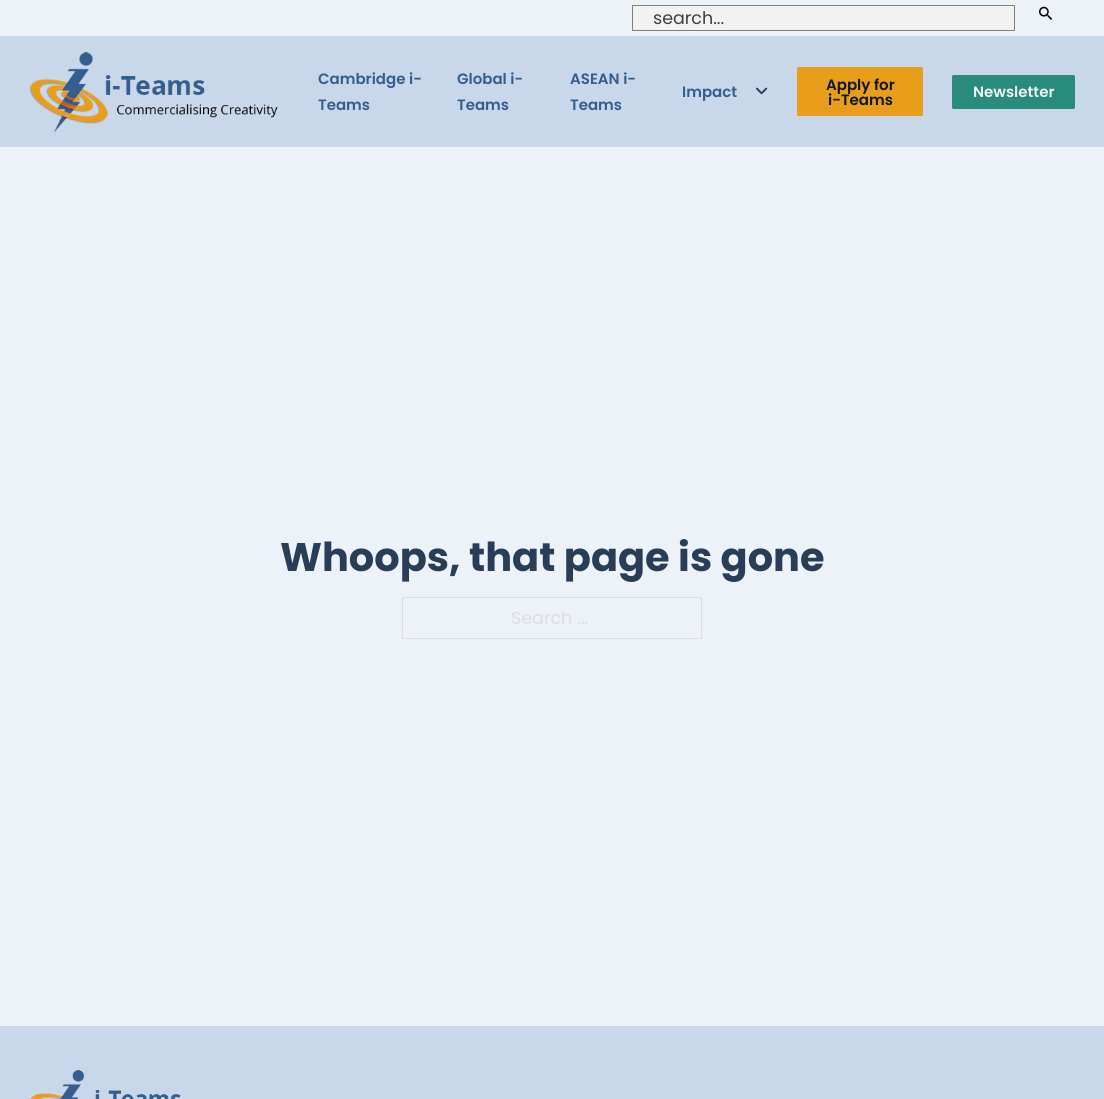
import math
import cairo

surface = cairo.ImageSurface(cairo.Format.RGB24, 1104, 1099)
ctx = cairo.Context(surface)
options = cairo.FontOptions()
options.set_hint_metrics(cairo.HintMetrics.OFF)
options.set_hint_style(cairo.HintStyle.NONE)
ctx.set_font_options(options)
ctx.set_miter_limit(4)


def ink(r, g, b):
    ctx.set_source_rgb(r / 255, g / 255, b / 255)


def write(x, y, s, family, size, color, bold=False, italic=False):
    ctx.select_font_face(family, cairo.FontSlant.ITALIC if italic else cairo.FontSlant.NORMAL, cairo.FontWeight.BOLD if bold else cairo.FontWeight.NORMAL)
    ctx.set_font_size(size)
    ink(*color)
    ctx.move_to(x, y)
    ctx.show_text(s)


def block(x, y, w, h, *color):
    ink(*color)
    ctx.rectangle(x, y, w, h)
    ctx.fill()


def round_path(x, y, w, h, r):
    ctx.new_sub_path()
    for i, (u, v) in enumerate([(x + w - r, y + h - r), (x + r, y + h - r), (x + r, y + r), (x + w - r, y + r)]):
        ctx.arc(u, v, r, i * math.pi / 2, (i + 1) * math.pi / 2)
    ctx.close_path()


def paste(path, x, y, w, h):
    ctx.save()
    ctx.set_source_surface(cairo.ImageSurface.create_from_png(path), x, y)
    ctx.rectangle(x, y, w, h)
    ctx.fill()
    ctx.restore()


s1 = dict(family="Poppins", size=17.5, color=(64, 64, 64))
s2 = dict(family="Poppins SemiBold", size=15, color=(53, 93, 141))
s3 = dict(family="Poppins SemiBold", size=15, color=(14, 24, 37))
s4 = dict(family="Poppins SemiBold", size=15, color=(237, 242, 248))
s5 = dict(family="Poppins", size=39.9, color=(41, 61, 87), bold=True)
s6 = dict(family="Poppins", size=17.5, color=(221, 222, 223))

ink(237, 242, 248)
ctx.paint()
ink(242, 242, 242)
ctx.rectangle(632.5, 5.5, 382, 25)
ctx.fill_preserve()
ink(128, 128, 128)
ctx.set_line_width(1)
ctx.stroke()
write(653, 24, "search...", **s1)
paste("pic1.png", 1039, 6, 14, 14)
block(0, 36, 1104, 111, 200, 215, 234)
paste("pic2.png", 29, 52, 249, 81)
write(318, 84, "Cambridge i-", **s2)
write(318, 110, "Teams", **s2)
write(457, 84, "Global i-", **s2)
write(457, 110, "Teams", **s2)
write(570, 84, "ASEAN i-", **s2)
write(570, 110, "Teams", **s2)
write(682, 97, "Impact", **s2)
paste("pic3.png", 756, 87, 12, 8)
ink(233, 158, 27)
round_path(798, 68, 124, 47, 0.5)
ctx.fill_preserve()
ctx.set_line_width(2)
ctx.stroke()
write(826, 90, "Apply for", **s3)
write(828, 105, "i-Teams", **s3)
ink(40, 139, 124)
round_path(953, 76, 121, 32, 0.5)
ctx.fill_preserve()
ctx.stroke()
write(973, 97, "Newsletter", **s4)
write(280, 571, "Whoops, that page is gone", **s5)
ctx.rectangle(402.5, 597.5, 299, 41)
ink(221, 222, 223)
ctx.set_line_width(1)
ctx.stroke()
write(511, 624, "Search ...", **s6)
block(0, 1026, 1104, 73, 200, 215, 234)
paste("pic4.png", 30, 1070, 151, 29)
surface.write_to_png("screenshot.png")
